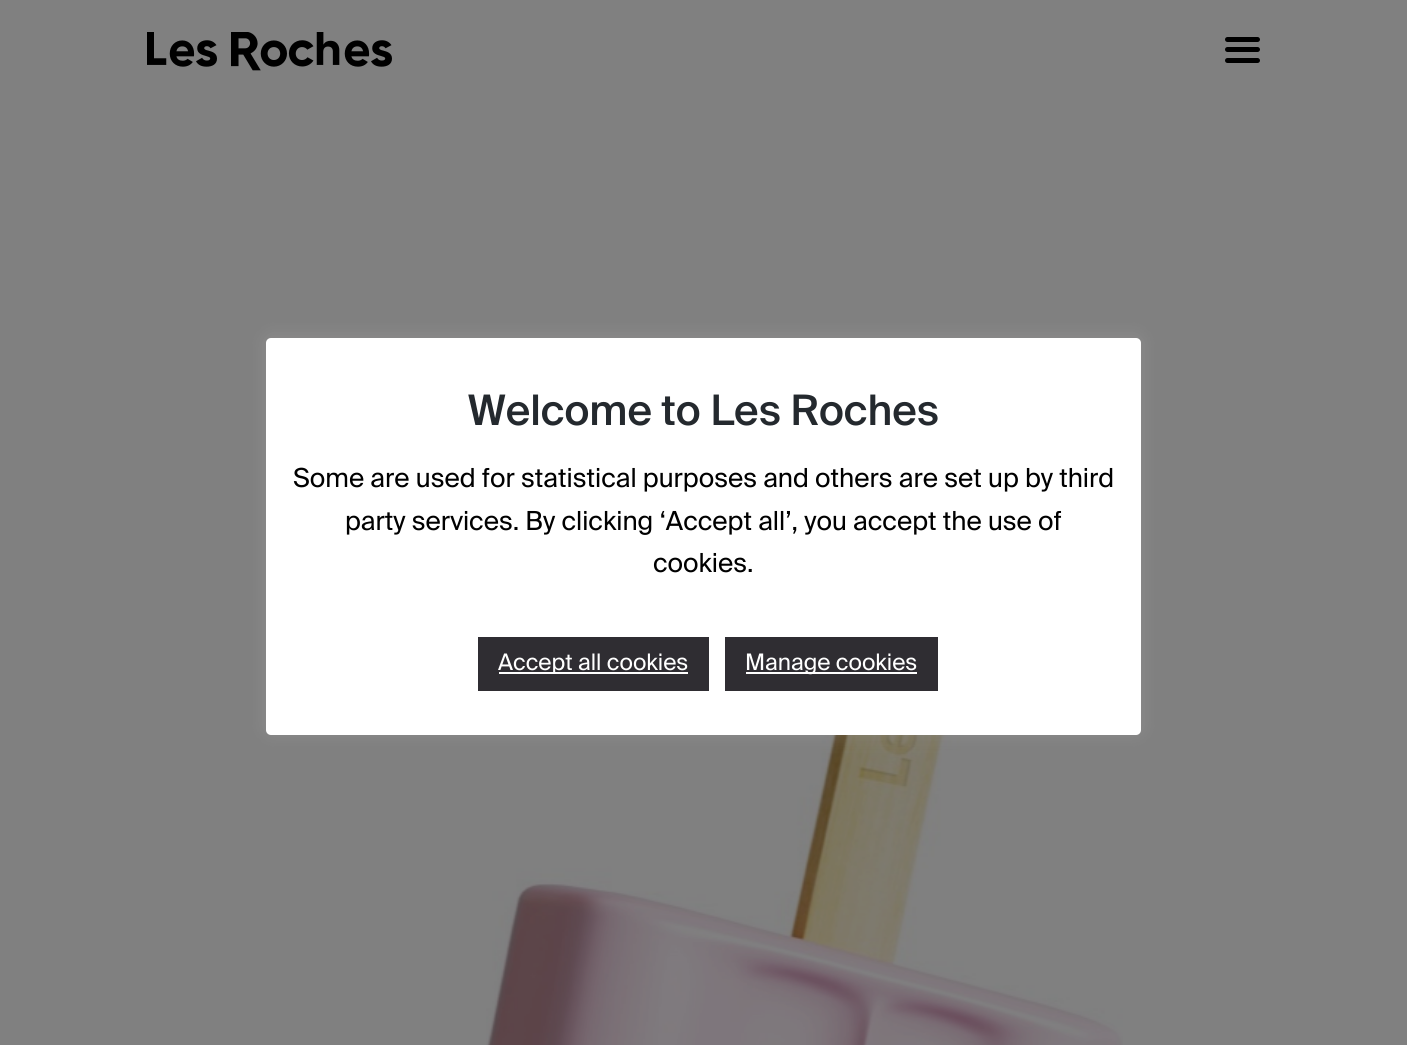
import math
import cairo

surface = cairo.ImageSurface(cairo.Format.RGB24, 1407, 1045)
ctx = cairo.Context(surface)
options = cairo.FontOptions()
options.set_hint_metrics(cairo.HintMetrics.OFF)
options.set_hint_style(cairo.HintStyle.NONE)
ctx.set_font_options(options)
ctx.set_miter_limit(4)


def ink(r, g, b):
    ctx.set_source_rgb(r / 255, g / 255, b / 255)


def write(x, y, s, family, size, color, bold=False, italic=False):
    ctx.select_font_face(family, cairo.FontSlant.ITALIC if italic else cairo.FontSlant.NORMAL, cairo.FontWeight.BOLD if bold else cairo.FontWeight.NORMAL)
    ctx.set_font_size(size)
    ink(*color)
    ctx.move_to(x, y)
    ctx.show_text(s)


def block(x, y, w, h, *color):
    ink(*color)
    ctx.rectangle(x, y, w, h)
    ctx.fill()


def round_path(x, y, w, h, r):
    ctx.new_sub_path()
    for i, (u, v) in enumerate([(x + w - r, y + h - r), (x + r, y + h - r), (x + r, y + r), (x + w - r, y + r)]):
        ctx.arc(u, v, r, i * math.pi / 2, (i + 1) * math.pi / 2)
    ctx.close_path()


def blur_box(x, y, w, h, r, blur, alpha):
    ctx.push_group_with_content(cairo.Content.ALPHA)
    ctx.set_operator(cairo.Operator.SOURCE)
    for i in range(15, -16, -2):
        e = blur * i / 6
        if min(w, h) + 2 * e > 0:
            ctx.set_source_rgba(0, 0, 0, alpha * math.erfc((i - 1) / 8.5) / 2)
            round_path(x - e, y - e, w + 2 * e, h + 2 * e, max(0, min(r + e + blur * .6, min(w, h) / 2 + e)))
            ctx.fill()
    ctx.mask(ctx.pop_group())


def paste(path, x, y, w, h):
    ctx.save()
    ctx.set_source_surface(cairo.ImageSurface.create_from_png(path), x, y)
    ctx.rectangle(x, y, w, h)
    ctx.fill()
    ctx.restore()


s1 = dict(family="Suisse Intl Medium", size=42, color=(36, 41, 46))
s2 = dict(family="Suisse Intl", size=26.25, color=(0, 0, 0))
s3 = dict(family="Suisse Intl", size=22.75, color=(255, 255, 255))

ink(128, 128, 128)
ctx.paint()
paste("pic1.png", 147, 32, 245, 39)
ink(0, 0, 0)
round_path(1225, 37, 35, 5, 2.5)
ctx.fill()
round_path(1225, 47, 35, 5, 2.5)
ctx.fill()
round_path(1225, 58, 35, 5, 2.5)
ctx.fill()
paste("pic2.png", 486, 735, 637, 310)
ink(172, 171, 171)
blur_box(266, 336, 875, 397, 5, 9, 0.3)
ink(255, 255, 255)
round_path(266, 338, 875, 397, 5)
ctx.fill()
write(468, 425, "Welcome to Les Roches", **s1)
write(293, 487, "Some are used for statistical purposes and others are set up by third", **s2)
write(345, 530, "party services. By clicking ‘Accept all’, you accept the use of", **s2)
write(653, 572, "cookies.", **s2)
block(478, 637, 231, 54, 47, 45, 50)
block(499, 672, 189, 2, 255, 255, 255)
write(498, 670, "Accept all cookies", **s3)
block(725, 637, 213, 54, 47, 45, 50)
block(746, 672, 171, 2, 255, 255, 255)
write(745, 670, "Manage cookies", **s3)
surface.write_to_png("screenshot.png")
